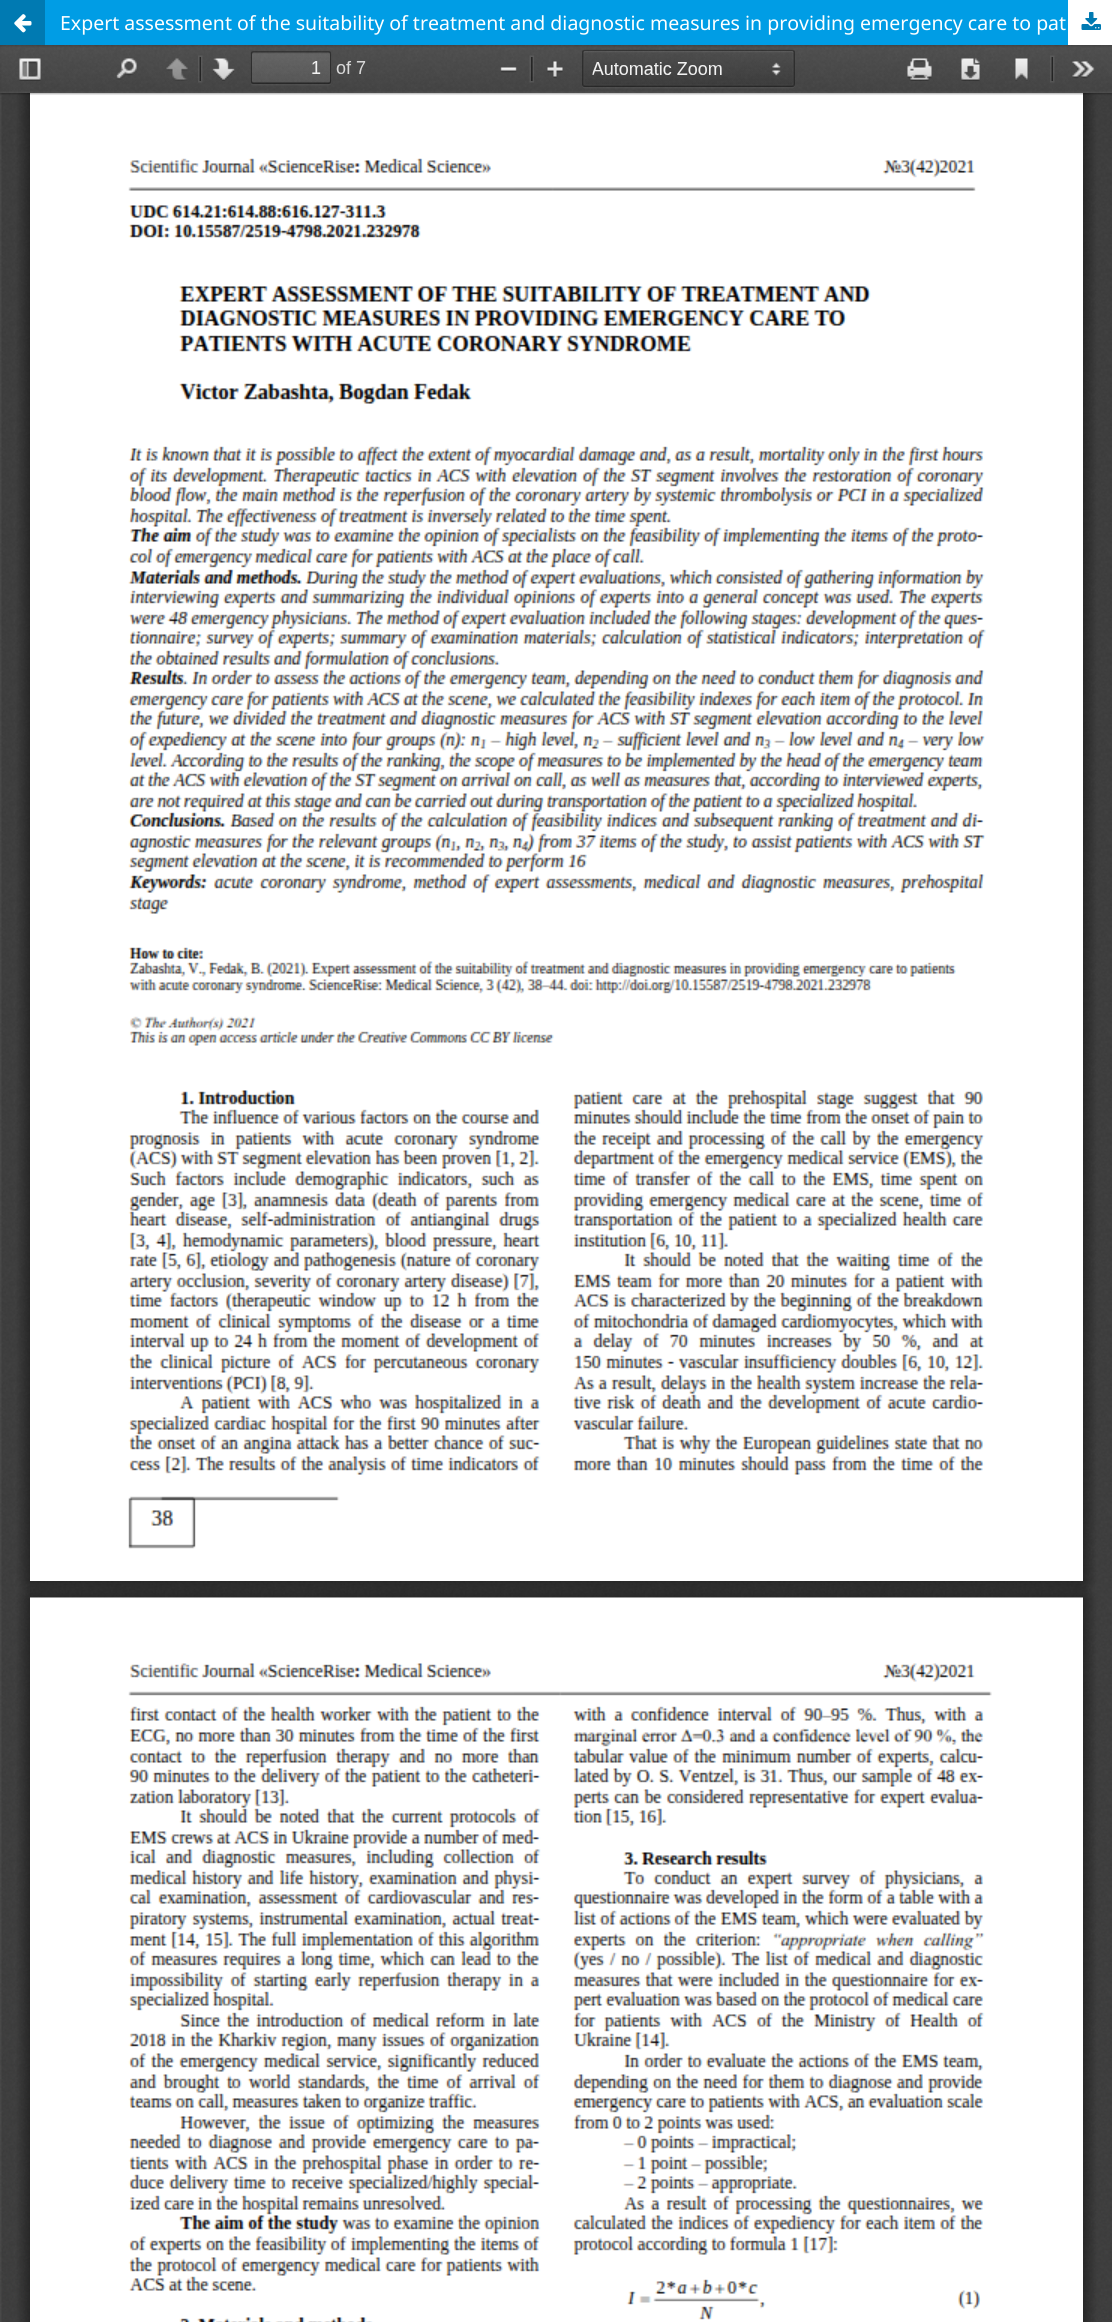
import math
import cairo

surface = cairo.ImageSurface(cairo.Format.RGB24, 1112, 2322)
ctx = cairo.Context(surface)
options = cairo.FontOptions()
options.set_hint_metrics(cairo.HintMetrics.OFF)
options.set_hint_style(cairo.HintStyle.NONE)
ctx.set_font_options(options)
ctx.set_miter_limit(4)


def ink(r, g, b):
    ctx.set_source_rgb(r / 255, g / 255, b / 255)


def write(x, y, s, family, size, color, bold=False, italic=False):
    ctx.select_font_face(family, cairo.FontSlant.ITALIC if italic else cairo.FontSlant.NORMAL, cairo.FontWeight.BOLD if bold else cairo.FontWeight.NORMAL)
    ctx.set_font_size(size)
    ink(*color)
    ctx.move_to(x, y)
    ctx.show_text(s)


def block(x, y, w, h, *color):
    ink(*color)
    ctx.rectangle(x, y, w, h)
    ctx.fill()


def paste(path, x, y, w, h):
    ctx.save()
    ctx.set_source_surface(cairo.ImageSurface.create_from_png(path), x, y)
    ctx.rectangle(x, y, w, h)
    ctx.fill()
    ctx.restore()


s1 = dict(family="Noto Sans", size=19.5, color=(255, 255, 255))

ink(255, 255, 255)
ctx.paint()
block(45, 0, 1023, 45, 0, 157, 229)
block(0, 0, 45, 45, 0, 122, 178)
paste("pic1.png", 14, 14, 18, 19)
write(60, 30, "Expert assessment of the suitability of treatment and diagnostic measures in providing emergency care to pat", **s1)
paste("pic2.png", 1081, 12, 20, 18)
paste("pic3.png", 0, 45, 1112, 2277)
surface.write_to_png("screenshot.png")
